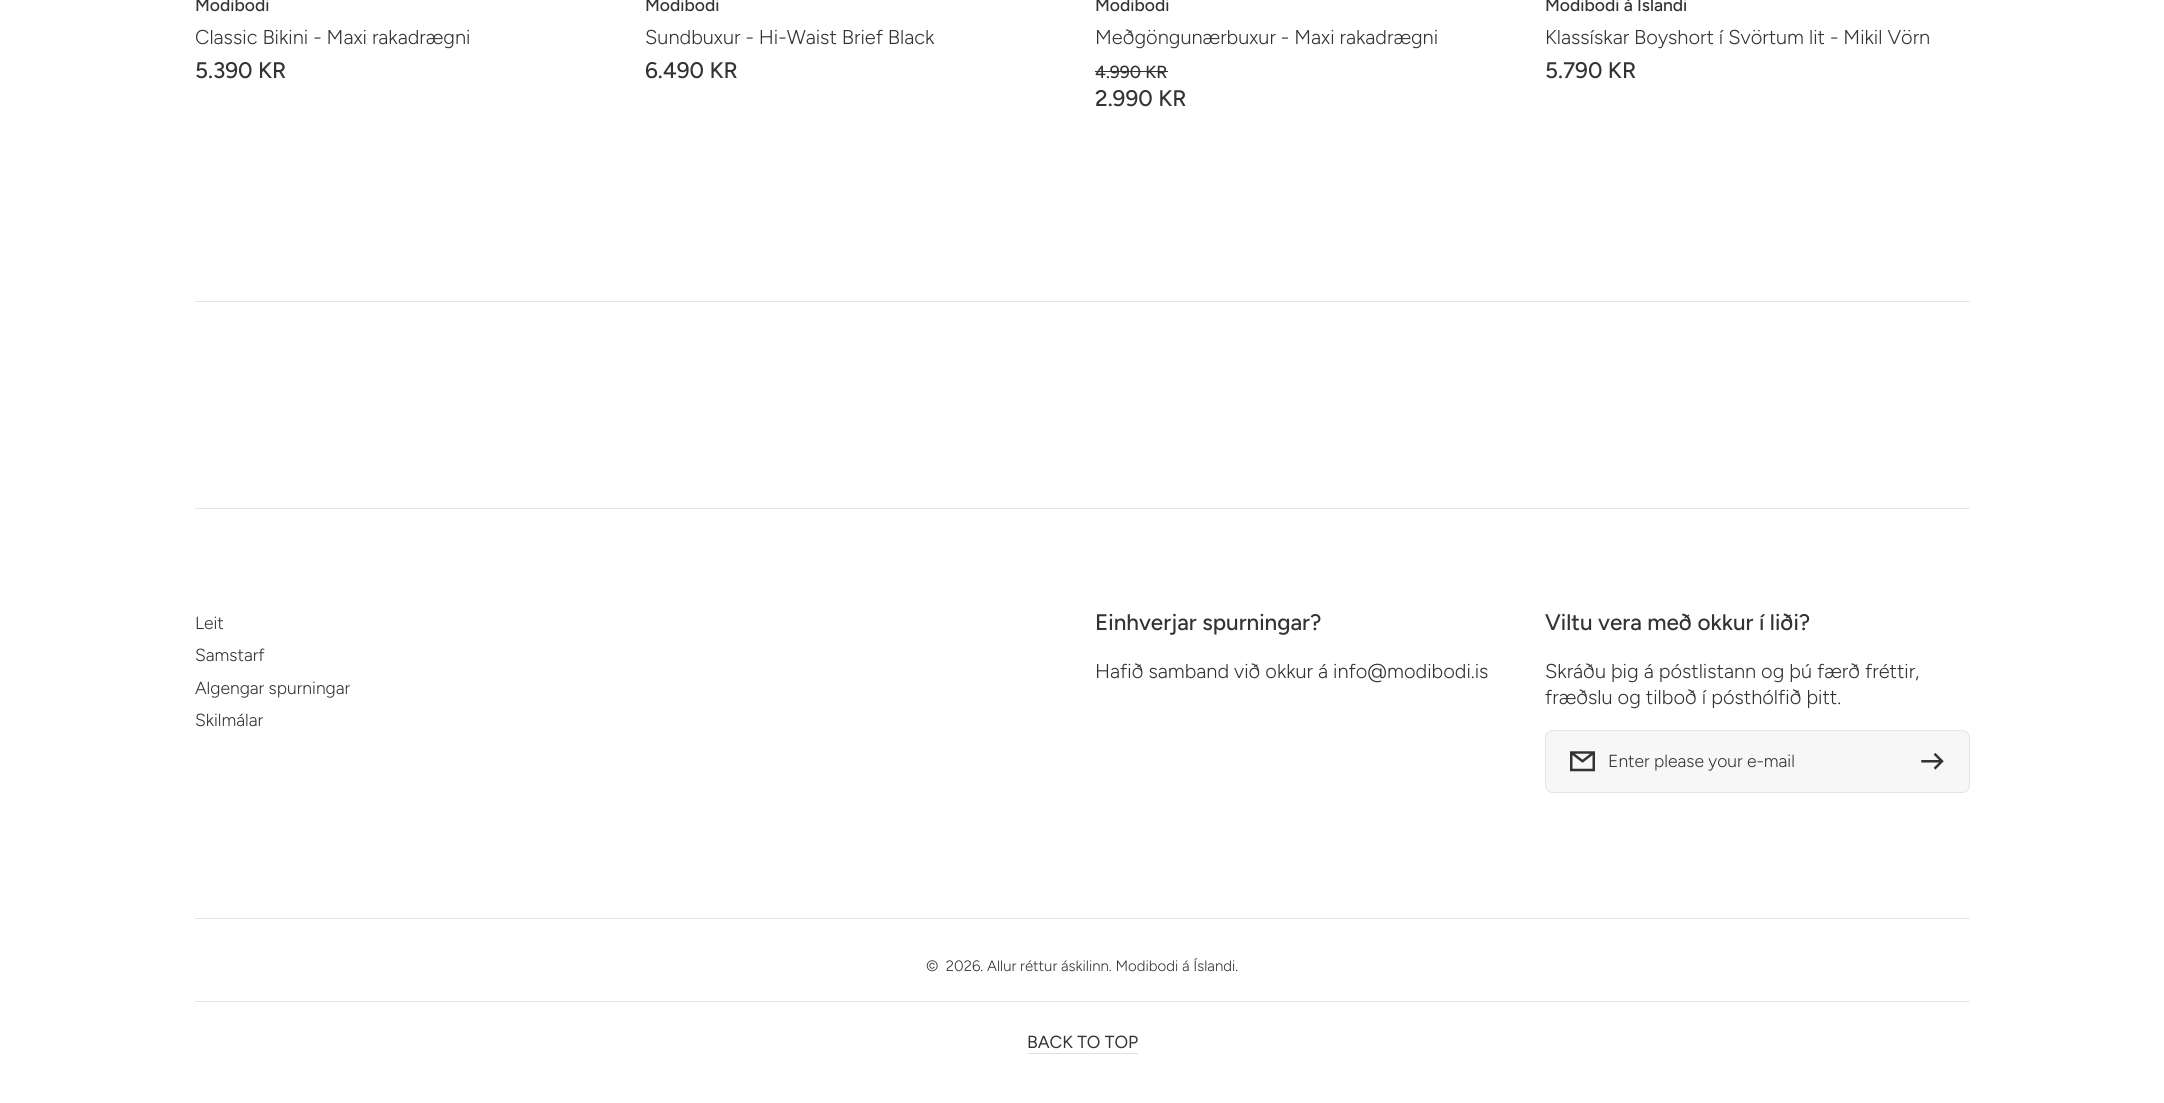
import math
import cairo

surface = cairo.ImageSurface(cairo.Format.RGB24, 2164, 1103)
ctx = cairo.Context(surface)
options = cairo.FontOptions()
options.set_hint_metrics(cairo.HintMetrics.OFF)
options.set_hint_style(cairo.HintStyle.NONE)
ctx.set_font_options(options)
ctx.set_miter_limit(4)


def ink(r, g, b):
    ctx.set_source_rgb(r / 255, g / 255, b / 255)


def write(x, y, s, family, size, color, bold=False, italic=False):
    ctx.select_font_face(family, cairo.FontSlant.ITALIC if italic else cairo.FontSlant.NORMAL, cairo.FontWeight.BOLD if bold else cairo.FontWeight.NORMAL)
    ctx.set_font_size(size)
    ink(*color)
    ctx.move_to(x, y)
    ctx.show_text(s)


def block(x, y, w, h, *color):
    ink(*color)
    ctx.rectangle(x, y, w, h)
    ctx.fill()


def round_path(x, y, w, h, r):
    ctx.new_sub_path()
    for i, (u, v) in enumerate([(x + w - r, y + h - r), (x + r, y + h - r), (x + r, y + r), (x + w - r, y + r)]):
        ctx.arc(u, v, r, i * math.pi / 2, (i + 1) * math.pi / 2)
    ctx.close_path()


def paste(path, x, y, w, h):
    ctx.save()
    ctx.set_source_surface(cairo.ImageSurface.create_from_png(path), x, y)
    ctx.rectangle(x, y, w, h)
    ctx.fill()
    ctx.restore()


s1 = dict(family="Figtree Medium", size=17.5, color=(51, 51, 51))
s2 = dict(family="Figtree Light", size=20, color=(51, 51, 51))
s3 = dict(family="Figtree Medium", size=22.5, color=(51, 51, 51))
s4 = dict(family="Figtree Light", size=17.5, color=(51, 51, 51))
s5 = dict(family="Figtree Light", size=15, color=(51, 51, 51))
s6 = dict(family="Figtree", size=17.5, color=(51, 51, 51))

ink(255, 255, 255)
ctx.paint()
write(195, 11, "Modibodi", **s1)
write(195, 44, "Classic Bikini - Maxi rakadrægni", **s2)
write(195, 78, "5.390 KR", **s3)
write(645, 11, "Modibodi", **s1)
write(645, 44, "Sundbuxur - Hi-Waist Brief Black", **s2)
write(645, 78, "6.490 KR", **s3)
write(1095, 11, "Modibodi", **s1)
write(1095, 44, "Meðgöngunærbuxur - Maxi rakadrægni", **s2)
write(1095, 78, "4.990 KR", **s1)
block(1095, 71, 73, 1, 51, 51, 51)
write(1095, 106, "2.990 KR", **s3)
write(1545, 11, "Modibodi á Íslandi", **s1)
write(1545, 44, "Klassískar Boyshort í Svörtum lit - Mikil Vörn", **s2)
write(1545, 78, "5.790 KR", **s3)
block(195, 301, 1775, 1, 228, 228, 228)
block(195, 508, 1775, 1, 228, 228, 228)
write(195, 629, "Leit", **s4)
write(195, 661, "Samstarf", **s4)
write(195, 694, "Algengar spurningar", **s4)
write(195, 726, "Skilmálar", **s4)
write(1095, 630, "Einhverjar spurningar?", **s3)
write(1095, 678, "Hafið samband við okkur á info@modibodi.is", **s2)
write(1545, 630, "Viltu vera með okkur í liði?", **s3)
write(1545, 678, "Skráðu þig á póstlistann og þú færð fréttir,", **s2)
write(1545, 704, "fræðslu og tilboð í pósthólfið þitt.", **s2)
ink(247, 247, 247)
round_path(1545.5, 730.5, 424, 62, 7.5)
ctx.fill_preserve()
ink(228, 228, 228)
ctx.set_line_width(1)
ctx.stroke()
paste("pic1.png", 1570, 751, 25, 21)
write(1608, 767, "Enter please your e-mail", **s4)
paste("pic2.png", 1921, 753, 23, 17)
block(195, 918, 1775, 1, 228, 228, 228)
write(926, 971, "©  2026. Allur réttur áskilinn. Modibodi á Íslandi.", **s5)
block(195, 1001, 1775, 1, 228, 228, 228)
write(1027, 1048, "BACK TO TOP", **s6)
block(1028, 1053, 110, 1, 224, 224, 224)
surface.write_to_png("screenshot.png")
